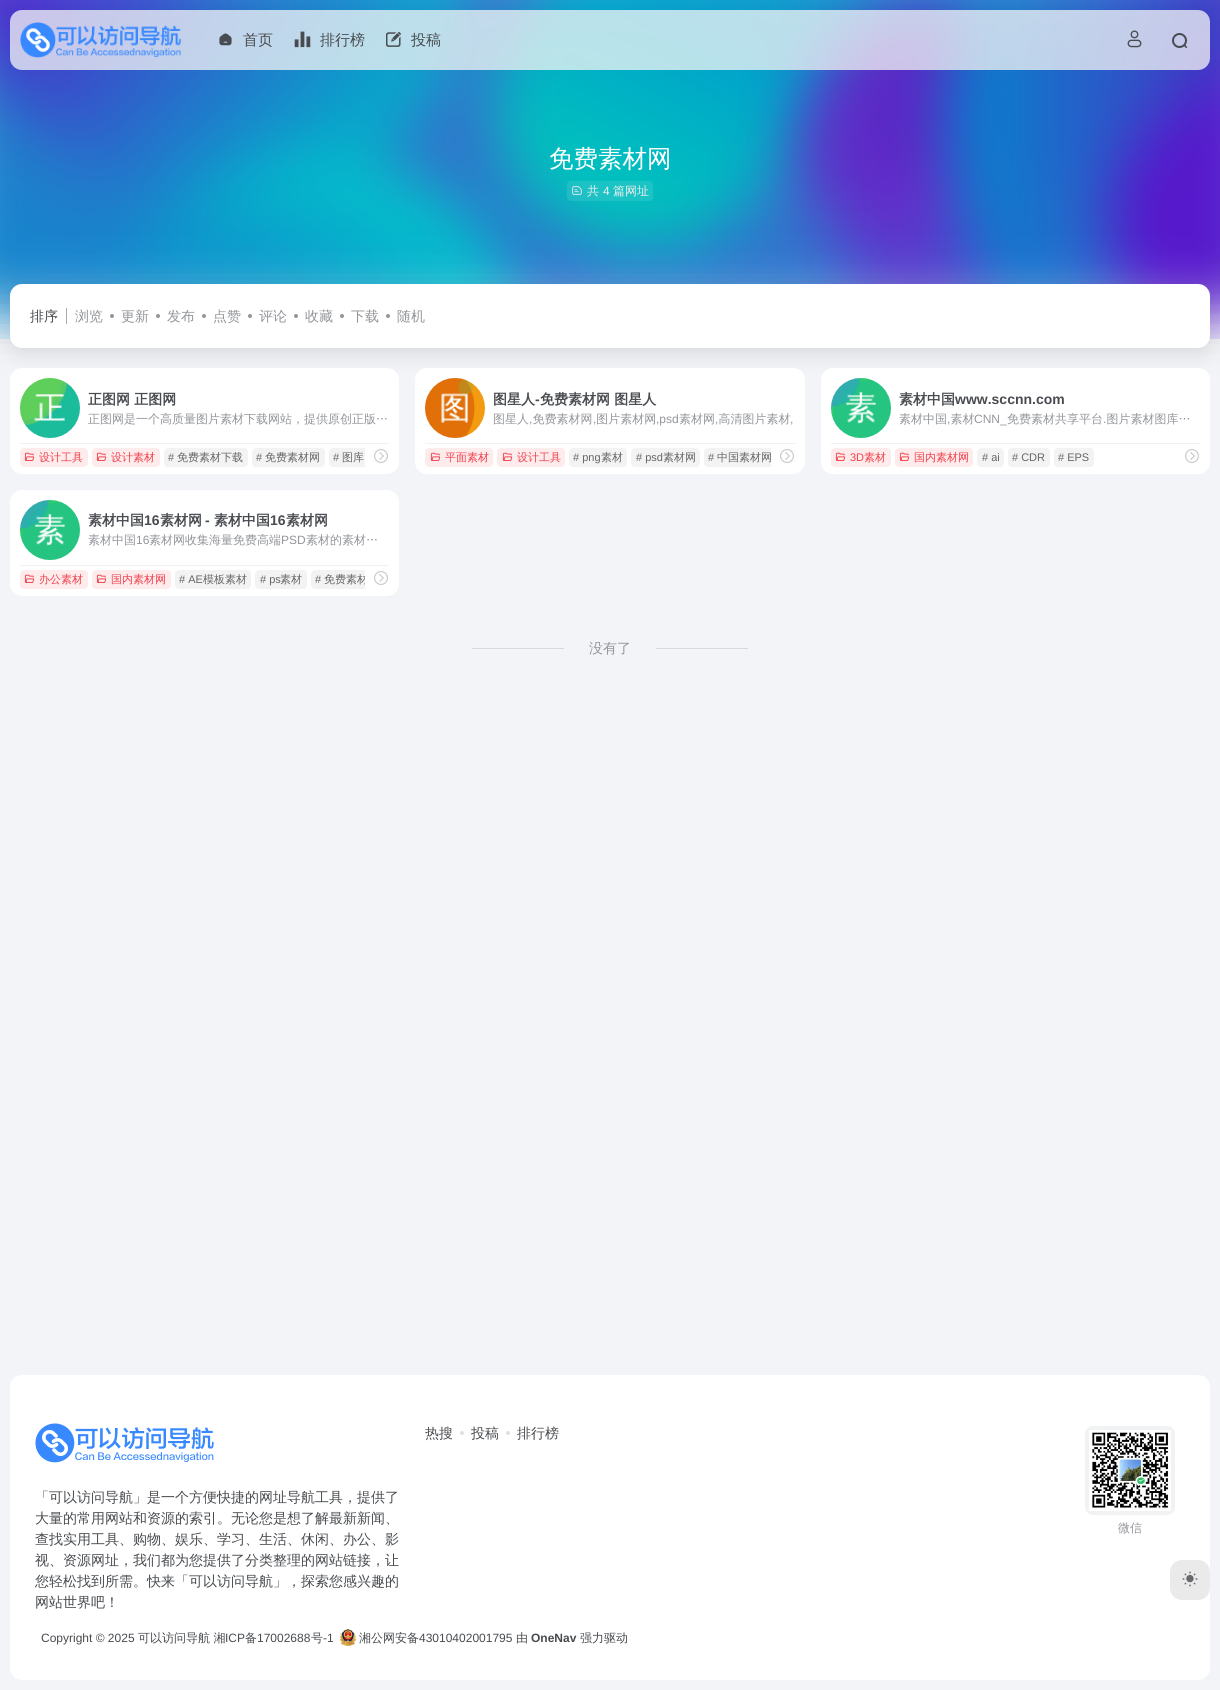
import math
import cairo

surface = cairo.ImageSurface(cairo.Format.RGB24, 1220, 1690)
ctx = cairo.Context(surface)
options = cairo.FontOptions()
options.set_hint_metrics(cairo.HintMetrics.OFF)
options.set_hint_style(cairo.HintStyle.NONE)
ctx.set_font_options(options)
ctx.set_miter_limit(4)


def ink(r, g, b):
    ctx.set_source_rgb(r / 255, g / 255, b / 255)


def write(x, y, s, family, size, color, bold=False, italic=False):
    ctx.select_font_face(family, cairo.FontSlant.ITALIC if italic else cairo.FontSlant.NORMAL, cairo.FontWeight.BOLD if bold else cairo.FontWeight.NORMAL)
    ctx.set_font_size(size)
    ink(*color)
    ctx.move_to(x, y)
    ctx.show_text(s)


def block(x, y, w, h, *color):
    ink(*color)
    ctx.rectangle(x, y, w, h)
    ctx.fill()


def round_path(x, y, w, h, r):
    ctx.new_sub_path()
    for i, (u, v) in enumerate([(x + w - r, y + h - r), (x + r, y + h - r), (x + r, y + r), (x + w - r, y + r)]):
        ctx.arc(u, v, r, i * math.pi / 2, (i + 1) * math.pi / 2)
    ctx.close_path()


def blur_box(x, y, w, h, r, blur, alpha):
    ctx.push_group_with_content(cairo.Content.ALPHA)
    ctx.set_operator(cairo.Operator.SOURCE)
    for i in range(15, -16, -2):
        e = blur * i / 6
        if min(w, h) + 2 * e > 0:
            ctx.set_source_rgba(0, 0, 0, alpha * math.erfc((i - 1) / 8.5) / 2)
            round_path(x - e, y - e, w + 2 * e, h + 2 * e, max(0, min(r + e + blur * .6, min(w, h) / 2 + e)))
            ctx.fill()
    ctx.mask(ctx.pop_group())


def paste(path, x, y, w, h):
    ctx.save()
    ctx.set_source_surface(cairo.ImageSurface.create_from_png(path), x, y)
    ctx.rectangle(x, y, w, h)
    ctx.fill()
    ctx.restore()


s1 = dict(family="WenQuanYi Zen Hei Medium", size=15, color=(72, 75, 79))
s2 = dict(family="WenQuanYi Zen Hei Medium", size=24.5, color=(255, 255, 255))
s3 = dict(family="WenQuanYi Zen Hei Medium", size=12, color=(238, 238, 238))
s4 = dict(family="Liberation Sans", size=12, color=(238, 238, 238))
s5 = dict(family="WenQuanYi Zen Hei Medium", size=14, color=(72, 75, 79))
s6 = dict(family="WenQuanYi Zen Hei Medium", size=14, color=(147, 149, 154))
s7 = dict(family="WenQuanYi Zen Hei", size=14, color=(72, 75, 79), bold=True)
s8 = dict(family="WenQuanYi Zen Hei Medium", size=12, color=(147, 149, 154))
s9 = dict(family="WenQuanYi Zen Hei Medium", size=11, color=(241, 64, 75))
s10 = dict(family="Liberation Sans", size=11, color=(102, 102, 102))
s11 = dict(family="WenQuanYi Zen Hei Medium", size=11, color=(102, 102, 102))
s12 = dict(family="Liberation Sans", size=14, color=(72, 75, 79), bold=True)
s13 = dict(family="Liberation Sans", size=12, color=(147, 149, 154))
s14 = dict(family="Liberation Sans", size=11, color=(241, 64, 75))
s15 = dict(family="Liberation Sans", size=12, color=(72, 75, 79))
s16 = dict(family="WenQuanYi Zen Hei Medium", size=12, color=(72, 75, 79))
s17 = dict(family="Liberation Sans", size=12, color=(72, 75, 79), bold=True)

ink(242, 244, 247)
ctx.paint()
paste("pic6.png", 0, 0, 1220, 339)
ink(0, 0, 0)
blur_box(-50, -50, 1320, 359, 0, 30, 0.2)
ctx.set_source_rgba(0.961, 0.961, 0.961, 0.75)
round_path(10, 10, 1200, 60, 12)
ctx.fill()
paste("pic1.png", 20, 22, 162, 36)
paste("pic2.png", 219, 33, 13, 13)
write(243, 45, "首页", **s1)
paste("pic3.png", 294, 31, 17, 17)
write(320, 45, "排行榜", **s1)
paste("pic4.png", 386, 31, 15, 16)
write(411, 45, "投稿", **s1)
paste("pic5.png", 1127, 30, 15, 18)
ctx.arc(1179.5, 40.5, 6.5, 0, 2 * math.pi)
ctx.stroke()
ctx.new_path()
ctx.move_to(1185.5, 45)
ctx.line_to(1187, 47)
ctx.curve_to(1187.5, 47.5, 1186.5, 48.5, 1186, 48)
ctx.line_to(1185, 47)
ctx.curve_to(1183, 45.5, 1184.5, 44, 1185.5, 45)
ctx.close_path()
ctx.fill()
write(549, 167, "免费素材网", **s2)
ctx.set_source_rgba(1, 1, 1, 0.1)
round_path(567, 181, 86, 20, 4)
ctx.fill()
paste("pic7.png", 572, 186, 10, 9)
write(587, 195, "共", **s3)
write(603, 195, "4", **s4)
write(613, 195, "篇网址", **s3)
ink(0, 0, 0)
blur_box(10, 289, 1200, 64, 12, 10, 0.1)
ink(255, 255, 255)
round_path(10, 284, 1200, 64, 12)
ctx.fill()
write(30, 321, "排序", **s5)
block(66, 308, 1, 16, 169, 170, 174)
write(75, 321, "浏览", **s6)
ctx.new_path()
ctx.arc(112, 316, 2, 0, 2 * math.pi)
ctx.fill()
write(121, 321, "更新", **s6)
ctx.new_path()
ctx.arc(158, 316, 2, 0, 2 * math.pi)
ctx.fill()
write(167, 321, "发布", **s6)
ctx.new_path()
ctx.arc(204, 316, 2, 0, 2 * math.pi)
ctx.fill()
write(213, 321, "点赞", **s6)
ctx.new_path()
ctx.arc(250, 316, 2, 0, 2 * math.pi)
ctx.fill()
write(259, 321, "评论", **s6)
ctx.new_path()
ctx.arc(296, 316, 2, 0, 2 * math.pi)
ctx.fill()
write(305, 321, "收藏", **s6)
ctx.new_path()
ctx.arc(342, 316, 2, 0, 2 * math.pi)
ctx.fill()
write(351, 321, "下载", **s6)
ctx.new_path()
ctx.arc(388, 316, 2, 0, 2 * math.pi)
ctx.fill()
write(397, 321, "随机", **s6)
ink(255, 255, 255)
round_path(10, 368, 389, 106, 12)
ctx.fill()
ink(241, 241, 241)
ctx.arc(50, 408, 30, 0, 2 * math.pi)
ctx.fill()
paste("pic8.png", 20, 378, 60, 60)
write(88, 404, "正图网 正图网", **s7)
write(88, 423, "正图网是一个高质量图片素材下载网站，提供原创正版…", **s8)
block(20, 443, 369, 1, 241, 241, 241)
ink(254, 236, 237)
round_path(20, 448, 68, 19, 4)
ctx.fill()
paste("pic9.png", 24, 452, 11, 9)
write(39, 461, "设计工具", **s9)
ink(254, 236, 237)
round_path(92, 448, 68, 19, 4)
ctx.fill()
paste("pic9.png", 96, 452, 11, 9)
write(111, 461, "设计素材", **s9)
ink(243, 243, 243)
round_path(164, 448, 84, 19, 4)
ctx.fill()
write(168, 461, "#", **s10)
write(177, 461, "免费素材下载", **s11)
ink(243, 243, 243)
round_path(252, 448, 73, 19, 4)
ctx.fill()
write(256, 461, "#", **s10)
write(265, 461, "免费素材网", **s11)
ink(243, 243, 243)
ctx.new_path()
ctx.move_to(333, 448)
ctx.line_to(365, 448)
ctx.line_to(365, 467)
ctx.line_to(333, 467)
ctx.curve_to(331, 467, 329, 465, 329, 463)
ctx.line_to(329, 452)
ctx.curve_to(329, 450, 331, 448, 333, 448)
ctx.close_path()
ctx.fill()
write(333, 461, "#", **s10)
write(342, 461, "图库", **s11)
paste("pic10.png", 374, 449, 14, 14)
ink(255, 255, 255)
round_path(415, 368, 390, 106, 12)
ctx.fill()
ink(241, 241, 241)
ctx.arc(455, 408, 30, 0, 2 * math.pi)
ctx.fill()
paste("pic11.png", 425, 378, 60, 60)
write(493, 404, "图星人", **s7)
write(535, 404, "-", **s12)
write(540, 404, "免费素材网 图星人", **s7)
write(493, 423, "图星人 免费素材网 图片素材网", **s8)
write(656, 423, ",psd", **s13)
write(679, 423, "素材网 高清图片素材", **s8)
write(529, 423, ",", **s13)
write(593, 423, ",", **s13)
write(715, 423, ",", **s13)
write(790, 423, ",", **s13)
block(425, 443, 370, 1, 241, 241, 241)
ink(254, 236, 237)
round_path(425, 448, 68, 19, 4)
ctx.fill()
paste("pic9.png", 430, 452, 11, 9)
write(445, 461, "平面素材", **s9)
ink(254, 236, 237)
round_path(497, 448, 68, 19, 4)
ctx.fill()
paste("pic9.png", 502, 452, 11, 9)
write(517, 461, "设计工具", **s9)
ink(243, 243, 243)
round_path(569, 448, 58, 19, 4)
ctx.fill()
write(573, 461, "# png", **s10)
write(601, 461, "素材", **s11)
ink(243, 243, 243)
round_path(631, 448, 69, 19, 4)
ctx.fill()
write(636, 461, "# psd", **s10)
write(663, 461, "素材网", **s11)
ink(243, 243, 243)
ctx.new_path()
ctx.move_to(708, 448)
ctx.line_to(771, 448)
ctx.line_to(771, 467)
ctx.line_to(708, 467)
ctx.curve_to(706, 467, 704, 465, 704, 463)
ctx.line_to(704, 452)
ctx.curve_to(704, 450, 706, 448, 708, 448)
ctx.close_path()
ctx.fill()
write(708, 461, "#", **s10)
ctx.save()
ctx.rectangle(425, 448, 346, 19)
ctx.clip()
write(717, 461, "中国素材网", **s11)
ctx.restore()
paste("pic10.png", 780, 449, 14, 14)
ink(255, 255, 255)
round_path(821, 368, 389, 106, 12)
ctx.fill()
ink(241, 241, 241)
ctx.arc(861, 408, 30, 0, 2 * math.pi)
ctx.fill()
paste("pic12.png", 831, 378, 60, 60)
write(899, 404, "素材中国", **s7)
write(955, 404, "www.sccnn.com", **s12)
write(899, 423, "素材中国 素材", **s8)
write(974, 423, "CNN_", **s13)
write(1007, 423, "免费素材共享平台 图片素材图库…", **s8)
write(947, 423, ",", **s13)
write(1103, 423, ".", **s13)
block(831, 443, 369, 1, 241, 241, 241)
ink(254, 236, 237)
round_path(831, 448, 60, 19, 4)
ctx.fill()
paste("pic9.png", 835, 452, 11, 9)
write(850, 461, "3D", **s14)
write(864, 461, "素材", **s9)
ink(254, 236, 237)
round_path(895, 448, 78, 19, 4)
ctx.fill()
paste("pic9.png", 899, 452, 11, 9)
write(914, 461, "国内素材网", **s9)
ink(243, 243, 243)
round_path(977, 448, 27, 19, 4)
ctx.fill()
write(982, 461, "# ai", **s10)
ink(243, 243, 243)
round_path(1008, 448, 42, 19, 4)
ctx.fill()
write(1012, 461, "# CDR", **s10)
ink(243, 243, 243)
round_path(1054, 448, 40, 19, 4)
ctx.fill()
write(1058, 461, "# EPS", **s10)
paste("pic10.png", 1185, 449, 14, 14)
ink(255, 255, 255)
round_path(10, 490, 389, 106, 12)
ctx.fill()
ink(241, 241, 241)
ctx.arc(50, 530, 30, 0, 2 * math.pi)
ctx.fill()
paste("pic13.png", 20, 500, 60, 60)
write(88, 525, "素材中国", **s7)
write(144, 525, "16", **s12)
write(160, 525, "素材网", **s7)
write(205, 525, "-", **s12)
write(214, 525, "素材中国", **s7)
write(270, 525, "16", **s12)
write(286, 525, "素材网", **s7)
write(88, 544, "素材中国", **s8)
write(136, 544, "16", **s13)
write(149, 544, "素材网收集海量免费高端", **s8)
write(281, 544, "PSD", **s13)
write(306, 544, "素材的素材…", **s8)
block(20, 565, 369, 1, 241, 241, 241)
ink(254, 236, 237)
round_path(20, 570, 68, 19, 4)
ctx.fill()
paste("pic9.png", 24, 574, 11, 9)
write(39, 583, "办公素材", **s9)
ink(254, 236, 237)
round_path(92, 570, 79, 19, 4)
ctx.fill()
paste("pic9.png", 96, 574, 11, 9)
write(111, 583, "国内素材网", **s9)
ink(243, 243, 243)
round_path(175, 570, 76, 19, 4)
ctx.fill()
write(179, 583, "# AE", **s10)
write(203, 583, "模板素材", **s11)
ink(243, 243, 243)
round_path(255, 570, 52, 19, 4)
ctx.fill()
write(260, 583, "# ps", **s10)
write(280, 583, "素材", **s11)
ink(243, 243, 243)
ctx.new_path()
ctx.move_to(315, 570)
ctx.line_to(365, 570)
ctx.line_to(365, 589)
ctx.line_to(315, 589)
ctx.curve_to(313, 589, 311, 587, 311, 585)
ctx.line_to(311, 574)
ctx.curve_to(311, 572, 313, 570, 315, 570)
ctx.close_path()
ctx.fill()
write(315, 583, "#", **s10)
ctx.save()
ctx.rectangle(20, 570, 345, 19)
ctx.clip()
write(324, 583, "免费素材", **s11)
ctx.restore()
paste("pic10.png", 374, 571, 14, 14)
block(472, 648, 92, 1, 214, 216, 219)
write(589, 653, "没有了", **s6)
block(656, 648, 92, 1, 214, 216, 219)
ink(255, 255, 255)
round_path(10, 1375, 1200, 305, 12)
ctx.fill()
write(425, 1438, "热搜", **s5)
ink(223, 223, 225)
ctx.new_path()
ctx.arc(462, 1433, 2, 0, 2 * math.pi)
ctx.fill()
write(471, 1438, "投稿", **s5)
ink(223, 223, 225)
ctx.new_path()
ctx.arc(508, 1433, 2, 0, 2 * math.pi)
ctx.fill()
write(517, 1438, "排行榜", **s5)
paste("pic14.png", 35, 1423, 179, 40)
write(35, 1502, "「可以访问导航」是一个方便快捷的网址导航工具，提供了", **s5)
write(35, 1523, "大量的常用网站和资源的索引。无论您是想了解最新新闻、", **s5)
write(35, 1544, "查找实用工具、购物、娱乐、学习、生活、休闲、办公、影", **s5)
write(35, 1565, "视、资源网址，我们都为您提供了分类整理的网站链接，让", **s5)
write(35, 1586, "您轻松找到所需。快来「可以访问导航」，探索您感兴趣的", **s5)
write(35, 1607, "网站世界吧！", **s5)
ink(241, 242, 244)
round_path(1085, 1426, 90, 89, 8)
ctx.fill()
paste("pic15.png", 1089, 1430, 82, 81)
write(1118, 1532, "微信", **s8)
write(41, 1642, "Copyright © 2025", **s15)
write(138, 1642, "可以访问导航 湘", **s16)
write(225, 1642, "ICP", **s15)
write(245, 1642, "备", **s16)
write(257, 1642, "17002688", **s15)
write(311, 1642, "号", **s16)
write(323, 1642, "-1", **s15)
paste("pic16.png", 340, 1629, 16, 17)
write(359, 1642, "湘公网安备", **s16)
write(419, 1642, "43010402001795", **s15)
write(516, 1642, "由", **s16)
write(531, 1642, "OneNav", **s17)
write(580, 1642, "强力驱动", **s16)
ink(234, 234, 234)
round_path(1170, 1560, 40, 40, 12)
ctx.fill()
paste("pic17.png", 1182, 1571, 16, 16)
surface.write_to_png("screenshot.png")
